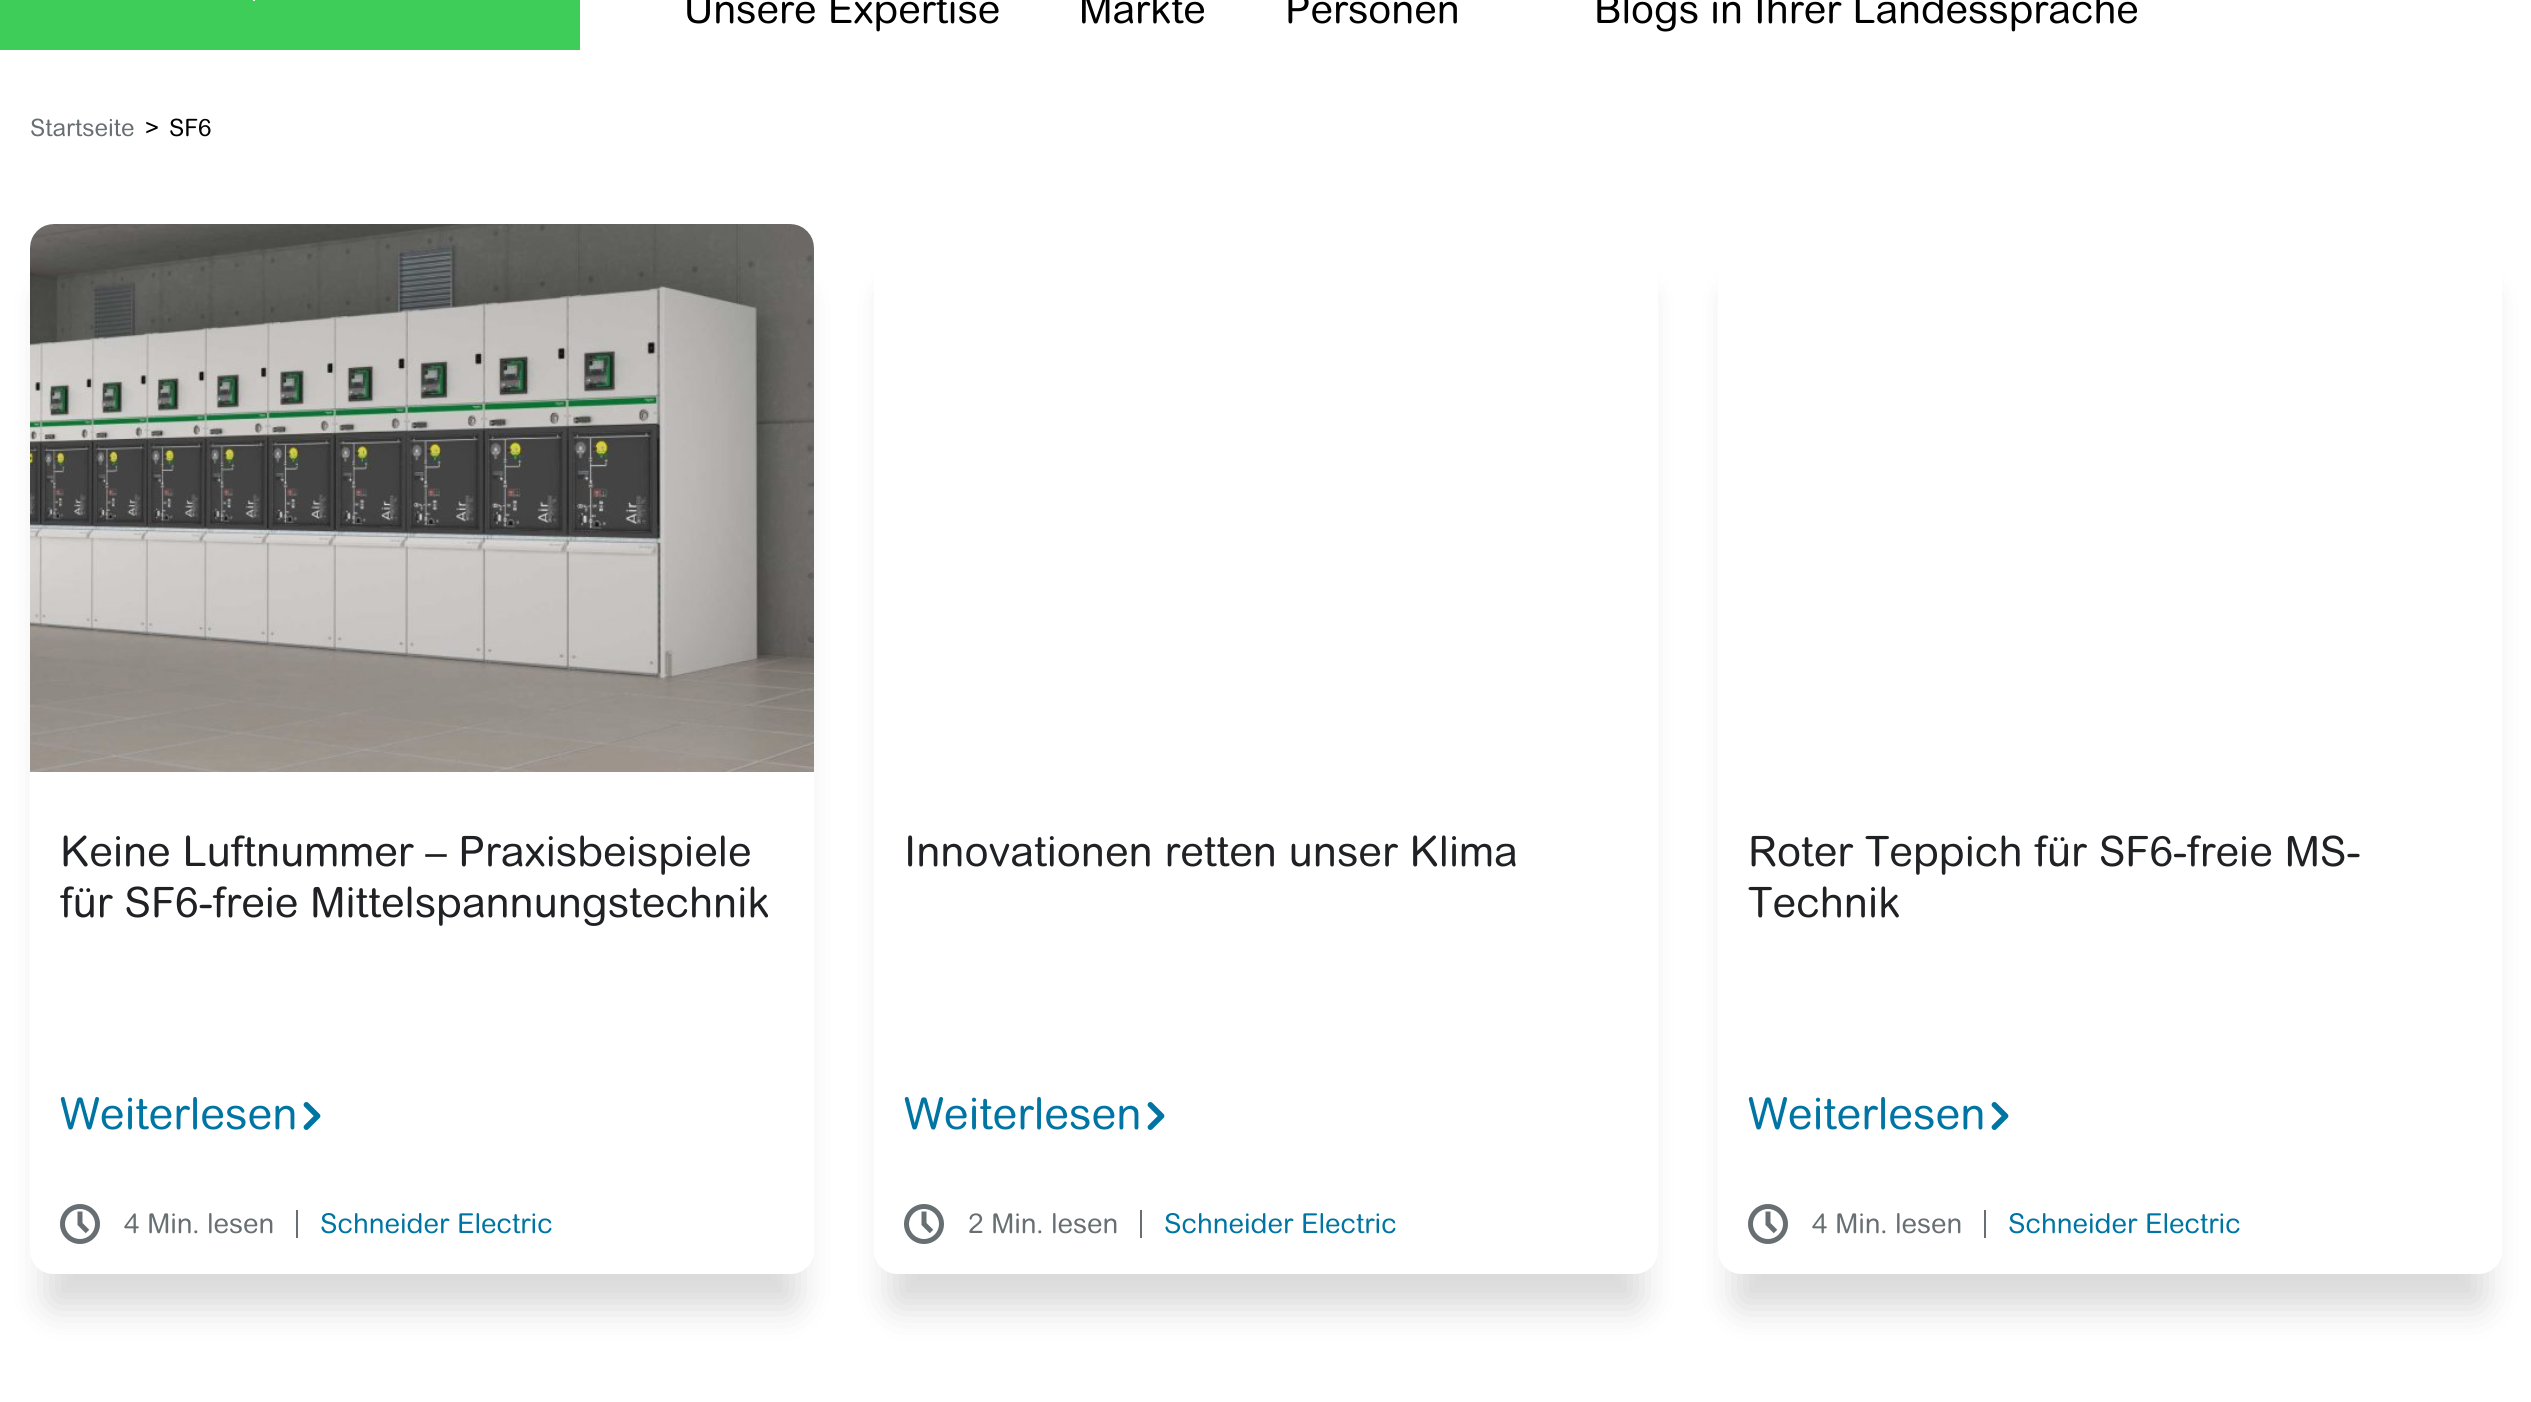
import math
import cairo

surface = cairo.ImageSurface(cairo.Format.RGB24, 2531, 1402)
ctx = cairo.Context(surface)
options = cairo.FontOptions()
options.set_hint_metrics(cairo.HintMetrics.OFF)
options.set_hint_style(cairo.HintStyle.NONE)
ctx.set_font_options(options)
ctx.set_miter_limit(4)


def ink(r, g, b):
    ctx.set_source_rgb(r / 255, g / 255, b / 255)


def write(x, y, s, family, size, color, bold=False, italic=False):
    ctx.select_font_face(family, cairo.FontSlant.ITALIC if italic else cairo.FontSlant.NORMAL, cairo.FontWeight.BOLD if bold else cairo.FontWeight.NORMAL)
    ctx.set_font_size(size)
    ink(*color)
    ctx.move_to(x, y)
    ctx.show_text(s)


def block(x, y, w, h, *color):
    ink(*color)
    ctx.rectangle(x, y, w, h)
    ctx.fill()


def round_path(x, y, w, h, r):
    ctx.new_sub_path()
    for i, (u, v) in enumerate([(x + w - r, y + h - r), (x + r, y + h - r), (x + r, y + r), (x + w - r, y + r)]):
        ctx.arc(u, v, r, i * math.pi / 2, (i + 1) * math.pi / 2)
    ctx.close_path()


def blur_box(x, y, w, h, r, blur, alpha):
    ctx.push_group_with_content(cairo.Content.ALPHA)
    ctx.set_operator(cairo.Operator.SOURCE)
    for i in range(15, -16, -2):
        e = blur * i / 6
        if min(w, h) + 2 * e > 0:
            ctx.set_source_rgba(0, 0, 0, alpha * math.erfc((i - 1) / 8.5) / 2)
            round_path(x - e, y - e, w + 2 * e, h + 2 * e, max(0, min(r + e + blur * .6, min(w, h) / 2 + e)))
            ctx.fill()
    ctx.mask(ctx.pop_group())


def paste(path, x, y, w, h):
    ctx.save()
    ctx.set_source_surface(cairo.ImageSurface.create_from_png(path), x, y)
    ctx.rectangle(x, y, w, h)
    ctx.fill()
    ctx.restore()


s1 = dict(family="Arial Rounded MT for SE", size=40, color=(0, 0, 0))
s2 = dict(family="Arial Rounded MT for SE", size=24, color=(103, 111, 115))
s3 = dict(family="Arial Rounded MT for SE", size=24, color=(0, 0, 0))
s4 = dict(family="Arial Rounded MT for SE", size=42, color=(32, 33, 36))
s5 = dict(family="Arial Rounded MT for SE", size=44, color=(0, 117, 163))
s6 = dict(family="Arial Rounded MT for SE", size=27.5, color=(103, 111, 115))
s7 = dict(family="Arial Rounded MT for SE", size=27.5, color=(0, 117, 163))

ink(255, 255, 255)
ctx.paint()
block(0, 0, 580, 50, 61, 205, 88)
block(253, 0, 2, 1, 255, 255, 254)
write(684, 23, "Unsere Expertise", **s1)
write(1079, 23, "Märkte", **s1)
write(1285, 23, "Personen", **s1)
write(1594, 23, "Blogs in Ihrer Landessprache", **s1)
write(30, 136, "Startseite", **s2)
write(145, 136, ">", **s3)
write(169, 136, "SF6", **s3)
ctx.save()
ctx.set_fill_rule(cairo.FillRule.EVEN_ODD)
ctx.new_path()
ctx.move_to(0, 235)
ctx.line_to(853, 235)
ctx.line_to(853, 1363)
ctx.line_to(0, 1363)
ctx.close_path()
ctx.move_to(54, 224)
ctx.line_to(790, 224)
ctx.curve_to(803.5, 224, 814, 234.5, 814, 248)
ctx.line_to(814, 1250)
ctx.curve_to(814, 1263.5, 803.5, 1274, 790, 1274)
ctx.line_to(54, 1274)
ctx.curve_to(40.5, 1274, 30, 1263.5, 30, 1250)
ctx.line_to(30, 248)
ctx.curve_to(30, 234.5, 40.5, 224, 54, 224)
ctx.close_path()
ctx.clip()
ink(0, 0, 0)
blur_box(46, 290, 752, 1018, 8, 18, 0.15)
ctx.restore()
paste("pic1.png", 30, 224, 784, 548)
write(60, 866, "Keine Luftnummer – Praxisbeispiele", **s4)
write(60, 917, "für SF6-freie Mittelspannungstechnik", **s4)
write(60, 1129, "Weiterlesen", **s5)
paste("pic2.png", 303, 1102, 18, 28)
paste("pic3.png", 60, 1204, 40, 40)
write(124, 1233, "4 Min. lesen", **s6)
block(296, 1210, 2, 28, 103, 111, 115)
write(320, 1233, "Schneider Electric", **s7)
ctx.save()
ctx.set_fill_rule(cairo.FillRule.EVEN_ODD)
ctx.new_path()
ctx.move_to(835, 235)
ctx.line_to(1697, 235)
ctx.line_to(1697, 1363)
ctx.line_to(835, 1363)
ctx.close_path()
ctx.move_to(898, 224)
ctx.line_to(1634, 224)
ctx.curve_to(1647.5, 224, 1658, 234.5, 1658, 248)
ctx.line_to(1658, 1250)
ctx.curve_to(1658, 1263.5, 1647.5, 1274, 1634, 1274)
ctx.line_to(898, 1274)
ctx.curve_to(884.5, 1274, 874, 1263.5, 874, 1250)
ctx.line_to(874, 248)
ctx.curve_to(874, 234.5, 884.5, 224, 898, 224)
ctx.close_path()
ctx.clip()
ink(0, 0, 0)
blur_box(890, 290, 752, 1018, 8, 18, 0.15)
ctx.restore()
write(904, 866, "Innovationen retten unser Klima", **s4)
write(904, 1129, "Weiterlesen", **s5)
paste("pic2.png", 1147, 1102, 18, 28)
paste("pic3.png", 904, 1204, 40, 40)
write(968, 1233, "2 Min. lesen", **s6)
block(1140, 1210, 2, 28, 103, 111, 115)
write(1164, 1233, "Schneider Electric", **s7)
ctx.save()
ctx.set_fill_rule(cairo.FillRule.EVEN_ODD)
ctx.new_path()
ctx.move_to(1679, 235)
ctx.line_to(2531, 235)
ctx.line_to(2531, 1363)
ctx.line_to(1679, 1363)
ctx.close_path()
ctx.move_to(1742, 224)
ctx.line_to(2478, 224)
ctx.curve_to(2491.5, 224, 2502, 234.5, 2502, 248)
ctx.line_to(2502, 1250)
ctx.curve_to(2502, 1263.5, 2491.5, 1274, 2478, 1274)
ctx.line_to(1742, 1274)
ctx.curve_to(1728.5, 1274, 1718, 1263.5, 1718, 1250)
ctx.line_to(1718, 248)
ctx.curve_to(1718, 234.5, 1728.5, 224, 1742, 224)
ctx.close_path()
ctx.clip()
ink(0, 0, 0)
blur_box(1734, 290, 752, 1018, 8, 18, 0.15)
ctx.restore()
write(1748, 866, "Roter Teppich für SF6-freie MS-", **s4)
write(1748, 917, "Technik", **s4)
write(1748, 1129, "Weiterlesen", **s5)
paste("pic2.png", 1991, 1102, 18, 28)
paste("pic3.png", 1748, 1204, 40, 40)
write(1812, 1233, "4 Min. lesen", **s6)
block(1984, 1210, 2, 28, 103, 111, 115)
write(2008, 1233, "Schneider Electric", **s7)
surface.write_to_png("screenshot.png")
